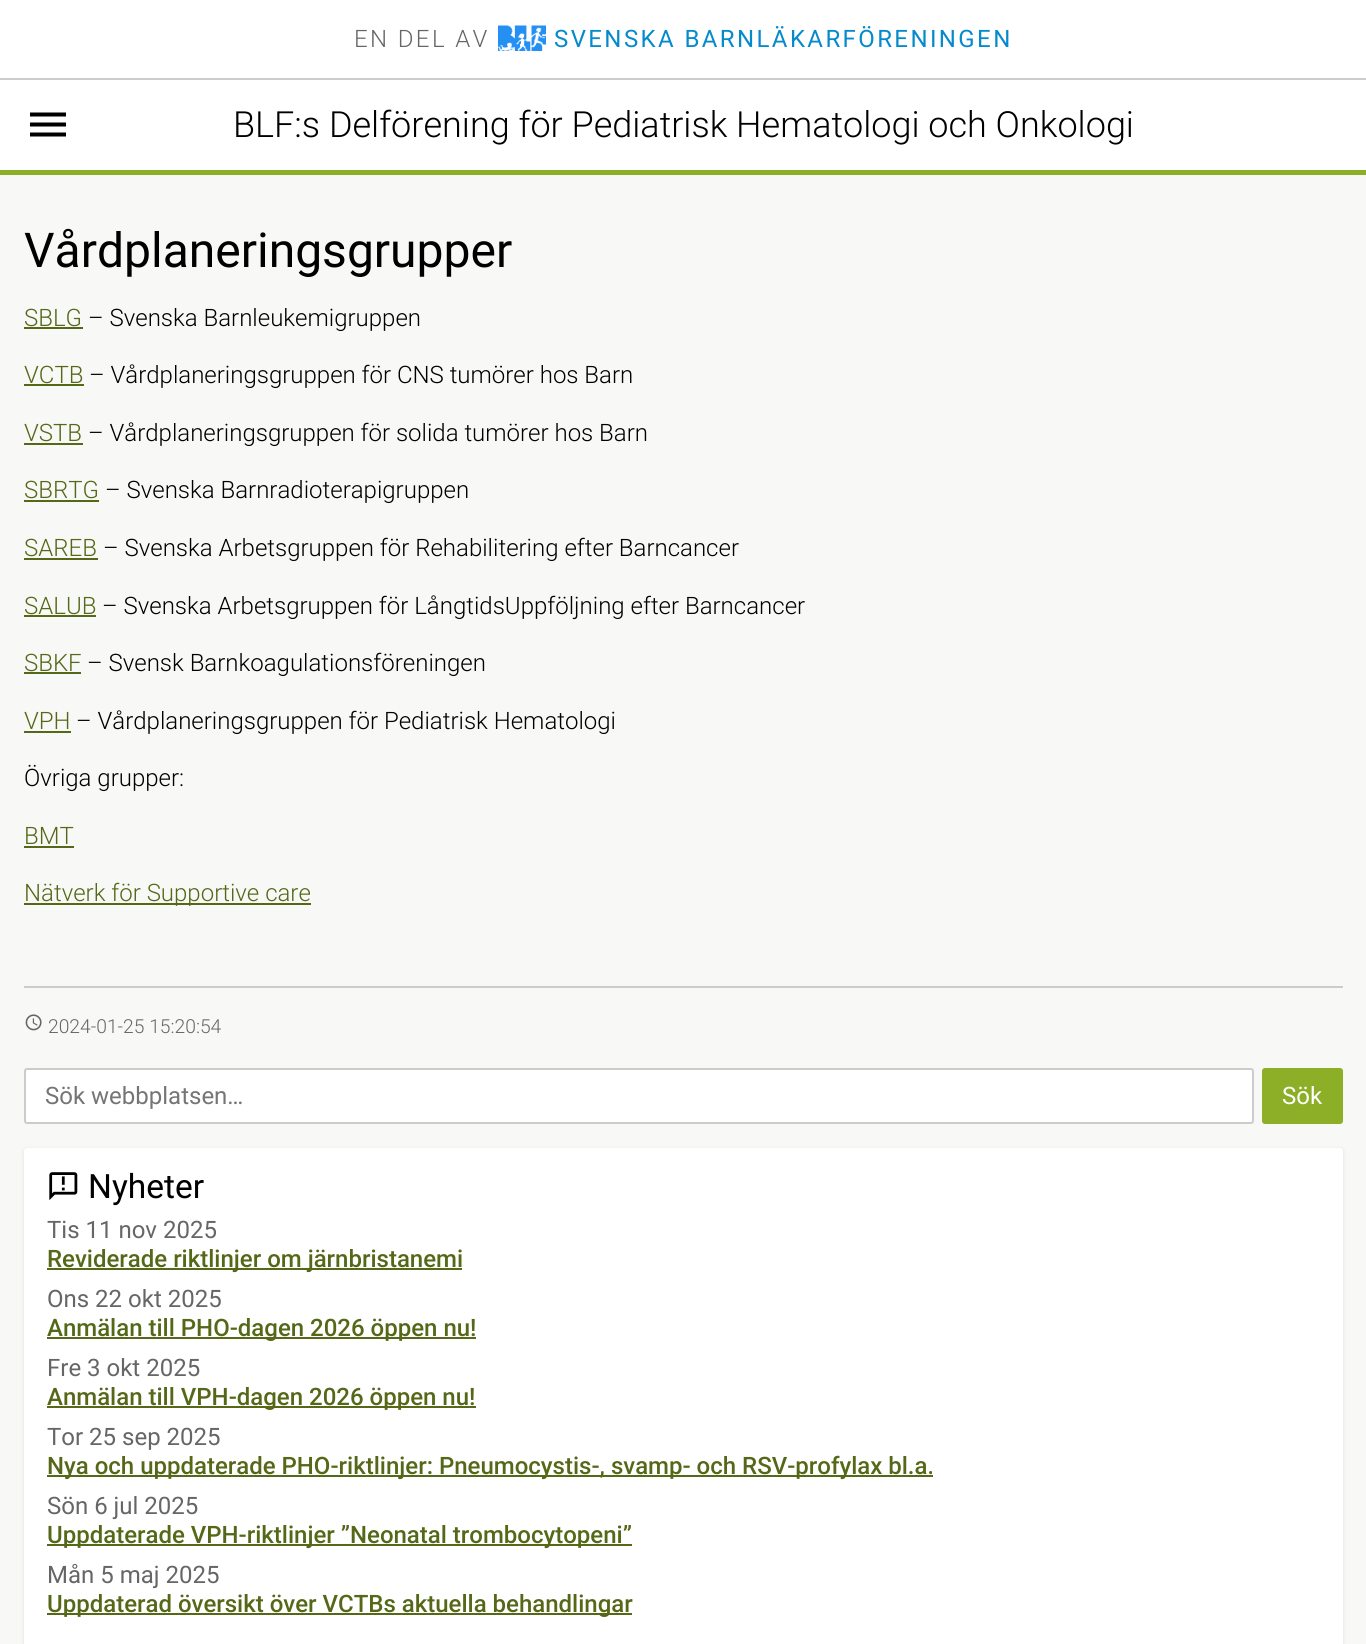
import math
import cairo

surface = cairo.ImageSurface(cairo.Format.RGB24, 1366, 1644)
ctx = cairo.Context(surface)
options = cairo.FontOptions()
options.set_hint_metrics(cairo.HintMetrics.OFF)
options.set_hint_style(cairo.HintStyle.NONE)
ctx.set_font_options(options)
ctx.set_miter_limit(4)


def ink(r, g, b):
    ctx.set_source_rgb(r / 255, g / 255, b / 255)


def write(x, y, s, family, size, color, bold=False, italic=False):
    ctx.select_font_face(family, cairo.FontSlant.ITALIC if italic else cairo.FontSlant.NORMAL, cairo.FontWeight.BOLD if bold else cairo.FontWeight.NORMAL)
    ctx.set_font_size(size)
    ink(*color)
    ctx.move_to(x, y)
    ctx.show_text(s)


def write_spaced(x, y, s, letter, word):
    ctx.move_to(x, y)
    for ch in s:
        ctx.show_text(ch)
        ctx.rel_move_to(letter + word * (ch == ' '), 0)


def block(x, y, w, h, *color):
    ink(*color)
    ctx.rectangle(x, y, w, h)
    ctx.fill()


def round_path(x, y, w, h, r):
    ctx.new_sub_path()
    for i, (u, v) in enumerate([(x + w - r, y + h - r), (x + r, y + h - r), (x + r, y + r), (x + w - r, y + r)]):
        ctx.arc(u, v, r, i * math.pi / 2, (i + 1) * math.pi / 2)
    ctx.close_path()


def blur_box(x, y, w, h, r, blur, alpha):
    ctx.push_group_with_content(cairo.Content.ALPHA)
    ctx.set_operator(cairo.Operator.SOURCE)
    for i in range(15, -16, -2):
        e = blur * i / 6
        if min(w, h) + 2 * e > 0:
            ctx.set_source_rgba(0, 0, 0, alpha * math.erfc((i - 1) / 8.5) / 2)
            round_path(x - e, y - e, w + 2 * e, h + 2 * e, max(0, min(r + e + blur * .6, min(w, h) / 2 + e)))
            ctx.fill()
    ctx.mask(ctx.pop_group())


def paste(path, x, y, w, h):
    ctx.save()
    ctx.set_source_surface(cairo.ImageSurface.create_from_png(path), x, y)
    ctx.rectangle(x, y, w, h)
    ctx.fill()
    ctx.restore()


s1 = dict(family="Roboto Light", size=36, color=(0, 0, 0))
s2 = dict(family="Roboto", size=48, color=(0, 0, 0))
s3 = dict(family="Roboto Light", size=24, color=(84, 104, 24))
s4 = dict(family="Roboto Light", size=24, color=(0, 0, 0))
s5 = dict(family="Roboto Light", size=19.25, color=(102, 102, 102))
s6 = dict(family="Roboto", size=24, color=(117, 117, 117))
s7 = dict(family="Roboto", size=24, color=(255, 255, 255))
s8 = dict(family="Roboto", size=33.5, color=(0, 0, 0))
s9 = dict(family="Roboto", size=24, color=(102, 102, 102))
s10 = dict(family="Roboto Medium", size=24, color=(84, 104, 24))

ink(248, 248, 246)
ctx.paint()
block(0, 0, 1366, 170, 255, 255, 255)
block(0, 78, 1366, 2, 204, 204, 204)
ctx.select_font_face("Roboto Light")
ctx.set_font_size(24)
ink(102, 102, 102)
write_spaced(354, 47, "EN DEL AV", 2.4, 0)
paste("pic1.png", 498, 25, 48, 26)
ctx.select_font_face("Roboto")
ink(5, 138, 204)
write_spaced(554, 47, "SVENSKA BARNLÄKARFÖRENINGEN", 2.4, 0)
ink(0, 0, 0)
ctx.new_path()
ctx.move_to(30, 136.5)
ctx.line_to(66, 136.5)
ctx.line_to(66, 132.5)
ctx.line_to(30, 132.5)
ctx.close_path()
ctx.move_to(30, 126.5)
ctx.line_to(66, 126.5)
ctx.line_to(66, 122.5)
ctx.line_to(30, 122.5)
ctx.close_path()
ctx.move_to(30, 112.5)
ctx.line_to(30, 116.5)
ctx.line_to(66, 116.5)
ctx.line_to(66, 112.5)
ctx.close_path()
ctx.fill()
write(233, 137, "BLF:s Delförening för Pediatrisk Hematologi och Onkologi", **s1)
block(0, 170, 1366, 5, 141, 175, 40)
write(24, 267, "Vårdplaneringsgrupper", **s2)
write(24, 326, "SBLG", **s3)
block(24, 327, 59, 2, 84, 104, 24)
write(88, 326, "– Svenska Barnleukemigruppen", **s4)
write(24, 383, "VCTB", **s3)
block(24, 384, 60, 2, 84, 104, 24)
write(89, 383, "– Vårdplaneringsgruppen för CNS tumörer hos Barn", **s4)
write(24, 441, "VSTB", **s3)
block(24, 443, 59, 2, 84, 104, 24)
write(88, 441, "– Vårdplaneringsgruppen för solida tumörer hos Barn", **s4)
write(24, 498, "SBRTG", **s3)
block(24, 500, 75, 2, 84, 104, 24)
write(105, 498, "– Svenska Barnradioterapigruppen", **s4)
write(24, 556, "SAREB", **s3)
block(24, 558, 74, 2, 84, 104, 24)
write(103, 556, "– Svenska Arbetsgruppen för Rehabilitering efter Barncancer", **s4)
write(24, 614, "SALUB", **s3)
block(24, 615, 72, 2, 84, 104, 24)
write(102, 614, "– Svenska Arbetsgruppen för LångtidsUppföljning efter Barncancer", **s4)
write(24, 671, "SBKF", **s3)
block(24, 672, 57, 2, 84, 104, 24)
write(87, 671, "– Svensk Barnkoagulationsföreningen", **s4)
write(24, 729, "VPH", **s3)
block(24, 731, 47, 2, 84, 104, 24)
write(76, 729, "– Vårdplaneringsgruppen för Pediatrisk Hematologi", **s4)
write(24, 786, "Övriga grupper:", **s4)
write(24, 844, "BMT", **s3)
block(24, 846, 50, 2, 84, 104, 24)
block(24, 903, 287, 2, 84, 104, 24)
write(24, 901, "Nätverk för Supportive care", **s3)
block(24, 986, 1319, 2, 204, 204, 204)
paste("pic2.png", 25, 1014, 17, 17)
write(48, 1033, "2024-01-25 15:20:54", **s5)
ink(255, 255, 255)
round_path(25, 1069, 1228, 54, 2)
ctx.fill_preserve()
ink(204, 204, 204)
ctx.stroke()
write(45, 1104, "Sök webbplatsen…", **s6)
ink(141, 175, 40)
round_path(1262, 1068, 81, 56, 3)
ctx.fill()
write(1282, 1104, "Sök", **s7)
ink(0, 0, 0)
blur_box(24, 1149, 1319, 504, 3, 2, 0.1)
ink(255, 255, 255)
round_path(24, 1148, 1319, 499, 3)
ctx.fill()
paste("pic3.png", 49, 1172, 29, 28)
write(88, 1198, "Nyheter", **s8)
write(47, 1238, "Tis 11 nov 2025", **s9)
block(47, 1268, 415, 2, 84, 104, 24)
write(47, 1267, "Reviderade riktlinjer om järnbristanemi", **s10)
write(47, 1307, "Ons 22 okt 2025", **s9)
block(47, 1337, 429, 2, 84, 104, 24)
write(47, 1336, "Anmälan till PHO-dagen 2026 öppen nu!", **s10)
write(47, 1376, "Fre 3 okt 2025", **s9)
block(47, 1406, 429, 2, 84, 104, 24)
write(47, 1405, "Anmälan till VPH-dagen 2026 öppen nu!", **s10)
write(47, 1445, "Tor 25 sep 2025", **s9)
block(47, 1475, 886, 2, 84, 104, 24)
write(47, 1474, "Nya och uppdaterade PHO-riktlinjer: Pneumocystis-, svamp- och RSV-profylax bl.a.", **s10)
write(47, 1514, "Sön 6 jul 2025", **s9)
block(47, 1544, 585, 2, 84, 104, 24)
write(47, 1543, "Uppdaterade VPH-riktlinjer ”Neonatal trombocytopeni”", **s10)
write(47, 1583, "Mån 5 maj 2025", **s9)
block(47, 1613, 585, 2, 84, 104, 24)
write(47, 1612, "Uppdaterad översikt över VCTBs aktuella behandlingar", **s10)
surface.write_to_png("screenshot.png")
